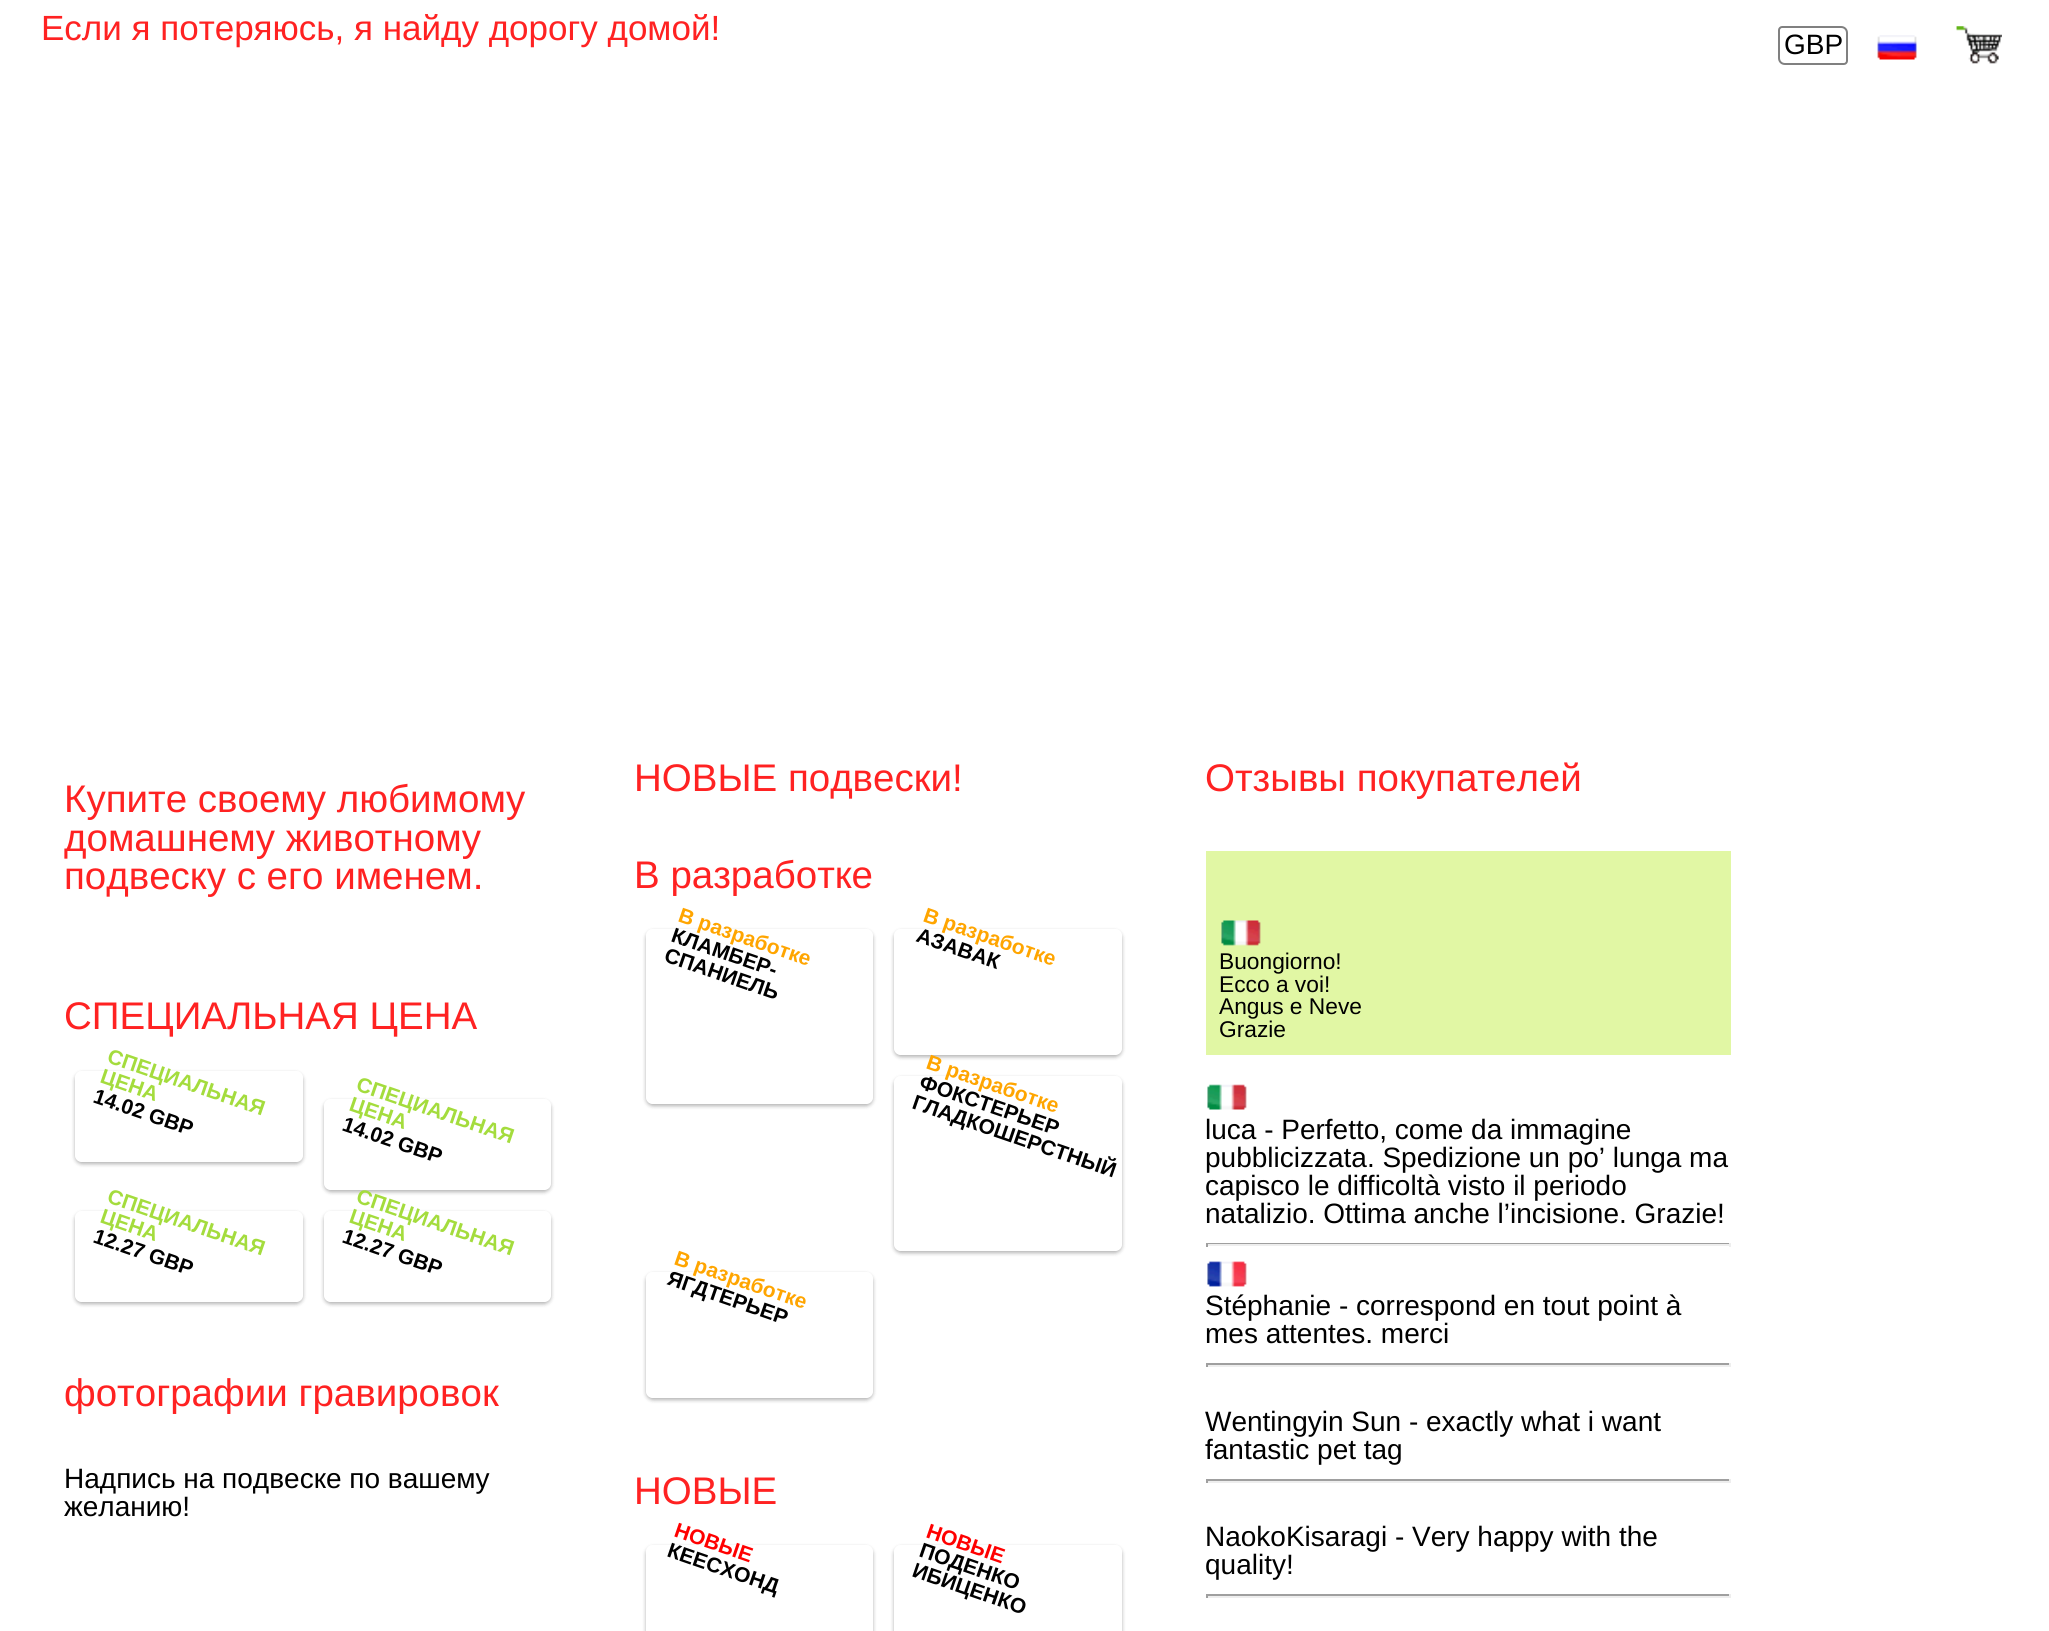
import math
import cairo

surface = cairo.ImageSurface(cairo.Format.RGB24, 2049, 1631)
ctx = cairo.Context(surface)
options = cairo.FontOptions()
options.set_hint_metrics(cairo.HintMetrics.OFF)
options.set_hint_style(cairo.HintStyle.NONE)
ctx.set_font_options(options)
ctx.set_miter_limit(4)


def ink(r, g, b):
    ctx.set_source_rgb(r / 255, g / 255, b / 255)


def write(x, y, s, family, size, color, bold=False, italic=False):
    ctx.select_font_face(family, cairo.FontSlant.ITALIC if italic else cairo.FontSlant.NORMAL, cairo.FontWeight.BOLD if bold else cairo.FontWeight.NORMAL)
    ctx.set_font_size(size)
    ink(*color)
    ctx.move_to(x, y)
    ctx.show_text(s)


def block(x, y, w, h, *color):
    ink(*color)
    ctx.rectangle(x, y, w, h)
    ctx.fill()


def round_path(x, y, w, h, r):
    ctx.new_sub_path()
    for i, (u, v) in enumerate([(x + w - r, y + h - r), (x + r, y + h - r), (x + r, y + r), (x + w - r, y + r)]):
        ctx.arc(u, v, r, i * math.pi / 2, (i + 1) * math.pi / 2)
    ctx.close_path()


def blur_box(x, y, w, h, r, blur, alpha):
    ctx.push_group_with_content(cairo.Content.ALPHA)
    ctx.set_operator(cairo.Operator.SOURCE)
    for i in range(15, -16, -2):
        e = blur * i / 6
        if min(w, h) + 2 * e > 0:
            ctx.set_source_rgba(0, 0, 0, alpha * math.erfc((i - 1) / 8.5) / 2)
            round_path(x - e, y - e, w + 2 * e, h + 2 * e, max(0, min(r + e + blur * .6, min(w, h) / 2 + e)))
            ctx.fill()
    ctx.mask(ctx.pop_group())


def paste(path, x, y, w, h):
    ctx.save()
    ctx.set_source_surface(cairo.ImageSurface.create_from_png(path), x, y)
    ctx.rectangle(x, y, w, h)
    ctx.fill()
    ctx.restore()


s1 = dict(family="Liberation Sans", size=35, color=(255, 34, 34))
s2 = dict(family="Liberation Sans", size=28, color=(0, 0, 0))
s3 = dict(family="Liberation Sans", size=38.5, color=(255, 34, 34))
s4 = dict(family="Liberation Sans", size=21, color=(164, 220, 61), bold=True)
s5 = dict(family="Liberation Sans", size=21, color=(0, 0, 0), bold=True)
s6 = dict(family="Liberation Sans", size=21, color=(255, 165, 0), bold=True)
s7 = dict(family="Liberation Sans", size=21, color=(255, 0, 0), bold=True)
s8 = dict(family="Liberation Sans", size=22.75, color=(0, 0, 0))

ink(255, 255, 255)
ctx.paint()
write(41, 40, "Если я потеряюсь, я найду дорогу домой!", **s1)
ctx.new_path()
ctx.move_to(1782, 27)
ctx.line_to(1841, 27)
ctx.curve_to(1844.5, 27, 1847, 29.5, 1847, 33)
ctx.line_to(1847, 61)
ctx.curve_to(1847, 62.5, 1845.5, 64, 1844, 64)
ctx.line_to(1785, 64)
ctx.curve_to(1781.5, 64, 1779, 61.5, 1779, 58)
ctx.line_to(1779, 30)
ctx.curve_to(1779, 28.5, 1780.5, 27, 1782, 27)
ctx.close_path()
ink(128, 128, 128)
ctx.stroke()
write(1784, 54, "GBP", **s2)
paste("pic1.png", 1877, 35, 40, 25)
paste("pic2.png", 1956, 26, 46, 38)
write(64, 812, "Купите своему любимому", **s3)
write(64, 851, "домашнему животному", **s3)
write(64, 889, "подвеску с его именем.", **s3)
write(64, 1029, "СПЕЦИАЛЬНАЯ ЦЕНА", **s3)
ctx.save()
ctx.set_fill_rule(cairo.FillRule.EVEN_ODD)
ctx.new_path()
ctx.move_to(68, 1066)
ctx.line_to(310, 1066)
ctx.line_to(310, 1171)
ctx.line_to(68, 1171)
ctx.close_path()
ctx.move_to(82, 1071)
ctx.line_to(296, 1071)
ctx.curve_to(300, 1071, 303, 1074, 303, 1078)
ctx.line_to(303, 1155)
ctx.curve_to(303, 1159, 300, 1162, 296, 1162)
ctx.line_to(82, 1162)
ctx.curve_to(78, 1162, 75, 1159, 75, 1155)
ctx.line_to(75, 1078)
ctx.curve_to(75, 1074, 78, 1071, 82, 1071)
ctx.close_path()
ctx.clip()
ink(0, 0, 0)
blur_box(75, 1073, 228, 91, 7, 2, 0.3)
ctx.restore()
ctx.save()
ctx.translate(106, 1062)
ctx.rotate(19 * math.pi / 180)
write(0, 0, "СПЕЦИАЛЬНАЯ", **s4)
ctx.restore()
ctx.save()
ctx.translate(99, 1082)
ctx.rotate(19 * math.pi / 180)
write(0, 0, "ЦЕНА", **s4)
ctx.restore()
ctx.save()
ctx.translate(92, 1102)
ctx.rotate(19 * math.pi / 180)
write(0, 0, "14.02 GBP", **s5)
ctx.restore()
ctx.save()
ctx.set_fill_rule(cairo.FillRule.EVEN_ODD)
ctx.new_path()
ctx.move_to(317, 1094)
ctx.line_to(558, 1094)
ctx.line_to(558, 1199)
ctx.line_to(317, 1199)
ctx.close_path()
ctx.move_to(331, 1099)
ctx.line_to(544, 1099)
ctx.curve_to(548, 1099, 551, 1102, 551, 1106)
ctx.line_to(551, 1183)
ctx.curve_to(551, 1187, 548, 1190, 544, 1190)
ctx.line_to(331, 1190)
ctx.curve_to(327, 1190, 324, 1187, 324, 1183)
ctx.line_to(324, 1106)
ctx.curve_to(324, 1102, 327, 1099, 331, 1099)
ctx.close_path()
ctx.clip()
ink(0, 0, 0)
blur_box(324, 1101, 227, 91, 7, 2, 0.3)
ctx.restore()
ctx.save()
ctx.translate(355, 1090)
ctx.rotate(19 * math.pi / 180)
write(0, 0, "СПЕЦИАЛЬНАЯ", **s4)
ctx.restore()
ctx.save()
ctx.translate(348, 1110)
ctx.rotate(19 * math.pi / 180)
write(0, 0, "ЦЕНА", **s4)
ctx.restore()
ctx.save()
ctx.translate(341, 1130)
ctx.rotate(19 * math.pi / 180)
write(0, 0, "14.02 GBP", **s5)
ctx.restore()
ctx.save()
ctx.set_fill_rule(cairo.FillRule.EVEN_ODD)
ctx.new_path()
ctx.move_to(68, 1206)
ctx.line_to(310, 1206)
ctx.line_to(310, 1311)
ctx.line_to(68, 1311)
ctx.close_path()
ctx.move_to(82, 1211)
ctx.line_to(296, 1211)
ctx.curve_to(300, 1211, 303, 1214, 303, 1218)
ctx.line_to(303, 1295)
ctx.curve_to(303, 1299, 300, 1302, 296, 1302)
ctx.line_to(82, 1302)
ctx.curve_to(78, 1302, 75, 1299, 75, 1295)
ctx.line_to(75, 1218)
ctx.curve_to(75, 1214, 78, 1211, 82, 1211)
ctx.close_path()
ctx.clip()
ink(0, 0, 0)
blur_box(75, 1213, 228, 91, 7, 2, 0.3)
ctx.restore()
ctx.save()
ctx.translate(106, 1202)
ctx.rotate(19 * math.pi / 180)
write(0, 0, "СПЕЦИАЛЬНАЯ", **s4)
ctx.restore()
ctx.save()
ctx.translate(99, 1222)
ctx.rotate(19 * math.pi / 180)
write(0, 0, "ЦЕНА", **s4)
ctx.restore()
ctx.save()
ctx.translate(92, 1242)
ctx.rotate(19 * math.pi / 180)
write(0, 0, "12.27 GBP", **s5)
ctx.restore()
ctx.save()
ctx.set_fill_rule(cairo.FillRule.EVEN_ODD)
ctx.new_path()
ctx.move_to(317, 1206)
ctx.line_to(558, 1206)
ctx.line_to(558, 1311)
ctx.line_to(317, 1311)
ctx.close_path()
ctx.move_to(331, 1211)
ctx.line_to(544, 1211)
ctx.curve_to(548, 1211, 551, 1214, 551, 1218)
ctx.line_to(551, 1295)
ctx.curve_to(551, 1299, 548, 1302, 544, 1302)
ctx.line_to(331, 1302)
ctx.curve_to(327, 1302, 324, 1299, 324, 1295)
ctx.line_to(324, 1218)
ctx.curve_to(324, 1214, 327, 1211, 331, 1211)
ctx.close_path()
ctx.clip()
ink(0, 0, 0)
blur_box(324, 1213, 227, 91, 7, 2, 0.3)
ctx.restore()
ctx.save()
ctx.translate(355, 1202)
ctx.rotate(19 * math.pi / 180)
write(0, 0, "СПЕЦИАЛЬНАЯ", **s4)
ctx.restore()
ctx.save()
ctx.translate(348, 1222)
ctx.rotate(19 * math.pi / 180)
write(0, 0, "ЦЕНА", **s4)
ctx.restore()
ctx.save()
ctx.translate(341, 1242)
ctx.rotate(19 * math.pi / 180)
write(0, 0, "12.27 GBP", **s5)
ctx.restore()
write(64, 1406, "фотографии гравировок", **s3)
write(64, 1488, "Надпись на подвеске по вашему", **s2)
write(64, 1516, "желанию!", **s2)
write(634, 791, "НОВЫЕ подвески!", **s3)
write(634, 888, "В разработке", **s3)
ctx.save()
ctx.set_fill_rule(cairo.FillRule.EVEN_ODD)
ctx.new_path()
ctx.move_to(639, 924)
ctx.line_to(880, 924)
ctx.line_to(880, 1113)
ctx.line_to(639, 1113)
ctx.close_path()
ctx.move_to(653, 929)
ctx.line_to(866, 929)
ctx.curve_to(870, 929, 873, 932, 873, 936)
ctx.line_to(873, 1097)
ctx.curve_to(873, 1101, 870, 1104, 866, 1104)
ctx.line_to(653, 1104)
ctx.curve_to(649, 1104, 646, 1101, 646, 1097)
ctx.line_to(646, 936)
ctx.curve_to(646, 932, 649, 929, 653, 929)
ctx.close_path()
ctx.clip()
ink(0, 0, 0)
blur_box(646, 931, 227, 175, 7, 2, 0.3)
ctx.restore()
ctx.save()
ctx.translate(677, 921)
ctx.rotate(19 * math.pi / 180)
write(0, 0, "В разработке", **s6)
ctx.restore()
ctx.save()
ctx.translate(670, 941)
ctx.rotate(19 * math.pi / 180)
write(0, 0, "КЛАМБЕР-", **s5)
ctx.restore()
ctx.save()
ctx.translate(663, 961)
ctx.rotate(19 * math.pi / 180)
write(0, 0, "СПАНИЕЛЬ", **s5)
ctx.restore()
ctx.save()
ctx.set_fill_rule(cairo.FillRule.EVEN_ODD)
ctx.new_path()
ctx.move_to(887, 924)
ctx.line_to(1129, 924)
ctx.line_to(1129, 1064)
ctx.line_to(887, 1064)
ctx.close_path()
ctx.move_to(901, 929)
ctx.line_to(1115, 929)
ctx.curve_to(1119, 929, 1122, 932, 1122, 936)
ctx.line_to(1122, 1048)
ctx.curve_to(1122, 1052, 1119, 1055, 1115, 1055)
ctx.line_to(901, 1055)
ctx.curve_to(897, 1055, 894, 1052, 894, 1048)
ctx.line_to(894, 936)
ctx.curve_to(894, 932, 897, 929, 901, 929)
ctx.close_path()
ctx.clip()
ink(0, 0, 0)
blur_box(894, 931, 228, 126, 7, 2, 0.3)
ctx.restore()
ctx.save()
ctx.translate(922, 921)
ctx.rotate(19 * math.pi / 180)
write(0, 0, "В разработке", **s6)
ctx.restore()
ctx.save()
ctx.translate(915, 941)
ctx.rotate(19 * math.pi / 180)
write(0, 0, "АЗАВАК", **s5)
ctx.restore()
ctx.save()
ctx.set_fill_rule(cairo.FillRule.EVEN_ODD)
ctx.new_path()
ctx.move_to(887, 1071)
ctx.line_to(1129, 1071)
ctx.line_to(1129, 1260)
ctx.line_to(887, 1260)
ctx.close_path()
ctx.move_to(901, 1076)
ctx.line_to(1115, 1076)
ctx.curve_to(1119, 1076, 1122, 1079, 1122, 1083)
ctx.line_to(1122, 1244)
ctx.curve_to(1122, 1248, 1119, 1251, 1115, 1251)
ctx.line_to(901, 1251)
ctx.curve_to(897, 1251, 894, 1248, 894, 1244)
ctx.line_to(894, 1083)
ctx.curve_to(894, 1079, 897, 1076, 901, 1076)
ctx.close_path()
ctx.clip()
ink(0, 0, 0)
blur_box(894, 1078, 228, 175, 7, 2, 0.3)
ctx.restore()
ctx.save()
ctx.translate(925, 1068)
ctx.rotate(19 * math.pi / 180)
write(0, 0, "В разработке", **s6)
ctx.restore()
ctx.save()
ctx.translate(918, 1088)
ctx.rotate(19 * math.pi / 180)
write(0, 0, "ФОКСТЕРЬЕР", **s5)
ctx.restore()
ctx.save()
ctx.translate(911, 1108)
ctx.rotate(19 * math.pi / 180)
write(0, 0, "ГЛАДКОШЕРСТНЫЙ", **s5)
ctx.restore()
ctx.save()
ctx.set_fill_rule(cairo.FillRule.EVEN_ODD)
ctx.new_path()
ctx.move_to(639, 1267)
ctx.line_to(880, 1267)
ctx.line_to(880, 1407)
ctx.line_to(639, 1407)
ctx.close_path()
ctx.move_to(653, 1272)
ctx.line_to(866, 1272)
ctx.curve_to(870, 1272, 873, 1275, 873, 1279)
ctx.line_to(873, 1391)
ctx.curve_to(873, 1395, 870, 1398, 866, 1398)
ctx.line_to(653, 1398)
ctx.curve_to(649, 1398, 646, 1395, 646, 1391)
ctx.line_to(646, 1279)
ctx.curve_to(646, 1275, 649, 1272, 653, 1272)
ctx.close_path()
ctx.clip()
ink(0, 0, 0)
blur_box(646, 1274, 227, 126, 7, 2, 0.3)
ctx.restore()
ctx.save()
ctx.translate(673, 1264)
ctx.rotate(19 * math.pi / 180)
write(0, 0, "В разработке", **s6)
ctx.restore()
ctx.save()
ctx.translate(666, 1284)
ctx.rotate(19 * math.pi / 180)
write(0, 0, "ЯГДТЕРЬЕР", **s5)
ctx.restore()
write(634, 1504, "НОВЫЕ", **s3)
ctx.save()
ctx.set_fill_rule(cairo.FillRule.EVEN_ODD)
ctx.new_path()
ctx.move_to(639, 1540)
ctx.line_to(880, 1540)
ctx.line_to(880, 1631)
ctx.line_to(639, 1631)
ctx.close_path()
ctx.move_to(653, 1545)
ctx.line_to(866, 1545)
ctx.curve_to(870, 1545, 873, 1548, 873, 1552)
ctx.line_to(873, 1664)
ctx.curve_to(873, 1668, 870, 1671, 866, 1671)
ctx.line_to(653, 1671)
ctx.curve_to(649, 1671, 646, 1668, 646, 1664)
ctx.line_to(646, 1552)
ctx.curve_to(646, 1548, 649, 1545, 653, 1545)
ctx.close_path()
ctx.clip()
ink(0, 0, 0)
blur_box(646, 1547, 227, 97, 7, 2, 0.3)
ctx.restore()
ctx.save()
ctx.translate(673, 1536)
ctx.rotate(19 * math.pi / 180)
write(0, 0, "НОВЫЕ", **s7)
ctx.restore()
ctx.save()
ctx.translate(666, 1556)
ctx.rotate(19 * math.pi / 180)
write(0, 0, "КЕЕСХОНД", **s5)
ctx.restore()
ctx.save()
ctx.set_fill_rule(cairo.FillRule.EVEN_ODD)
ctx.new_path()
ctx.move_to(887, 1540)
ctx.line_to(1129, 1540)
ctx.line_to(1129, 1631)
ctx.line_to(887, 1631)
ctx.close_path()
ctx.move_to(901, 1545)
ctx.line_to(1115, 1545)
ctx.curve_to(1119, 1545, 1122, 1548, 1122, 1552)
ctx.line_to(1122, 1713)
ctx.curve_to(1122, 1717, 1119, 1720, 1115, 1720)
ctx.line_to(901, 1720)
ctx.curve_to(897, 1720, 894, 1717, 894, 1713)
ctx.line_to(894, 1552)
ctx.curve_to(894, 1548, 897, 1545, 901, 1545)
ctx.close_path()
ctx.clip()
ink(0, 0, 0)
blur_box(894, 1547, 228, 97, 7, 2, 0.3)
ctx.restore()
ctx.save()
ctx.translate(925, 1537)
ctx.rotate(19 * math.pi / 180)
write(0, 0, "НОВЫЕ", **s7)
ctx.restore()
ctx.save()
ctx.translate(918, 1556)
ctx.rotate(19 * math.pi / 180)
write(0, 0, "ПОДЕНКО", **s5)
ctx.restore()
ctx.save()
ctx.translate(911, 1576)
ctx.rotate(19 * math.pi / 180)
write(0, 0, "ИБИЦЕНКО", **s5)
ctx.restore()
write(1205, 791, "Отзывы покупателей", **s3)
block(1206, 851, 525, 204, 225, 247, 164)
paste("pic3.png", 1221, 920, 40, 26)
write(1219, 969, "Buongiorno!", **s8)
write(1219, 992, "Ecco a voi!", **s8)
write(1219, 1014, "Angus e Neve", **s8)
write(1219, 1037, "Grazie", **s8)
paste("pic4.png", 1207, 1084, 40, 26)
write(1205, 1139, "luca - Perfetto, come da immagine", **s2)
write(1205, 1167, "pubblicizzata. Spedizione un po’ lunga ma", **s2)
write(1205, 1195, "capisco le difficoltà visto il periodo", **s2)
write(1205, 1223, "natalizio. Ottima anche l’incisione. Grazie!", **s2)
block(1206, 1243, 525, 1, 159, 159, 159)
block(1729, 1243, 2, 4, 238, 238, 238)
block(1206, 1244, 525, 2, 238, 238, 238)
block(1206, 1243, 2, 4, 159, 159, 159)
paste("pic5.png", 1207, 1261, 40, 26)
write(1205, 1315, "Stéphanie - correspond en tout point à", **s2)
write(1205, 1343, "mes attentes. merci", **s2)
block(1206, 1363, 525, 2, 159, 159, 159)
block(1729, 1363, 2, 4, 238, 238, 238)
block(1206, 1365, 525, 2, 238, 238, 238)
block(1206, 1363, 2, 4, 159, 159, 159)
write(1205, 1431, "Wentingyin Sun - exactly what i want", **s2)
write(1205, 1459, "fantastic pet tag", **s2)
block(1206, 1479, 525, 2, 159, 159, 159)
block(1729, 1479, 2, 4, 238, 238, 238)
block(1206, 1481, 525, 2, 238, 238, 238)
block(1206, 1479, 2, 4, 159, 159, 159)
write(1205, 1546, "NaokoKisaragi - Very happy with the", **s2)
write(1205, 1574, "quality!", **s2)
block(1206, 1594, 525, 2, 159, 159, 159)
block(1729, 1594, 2, 4, 238, 238, 238)
block(1206, 1596, 525, 2, 238, 238, 238)
block(1206, 1594, 2, 4, 159, 159, 159)
surface.write_to_png("screenshot.png")
